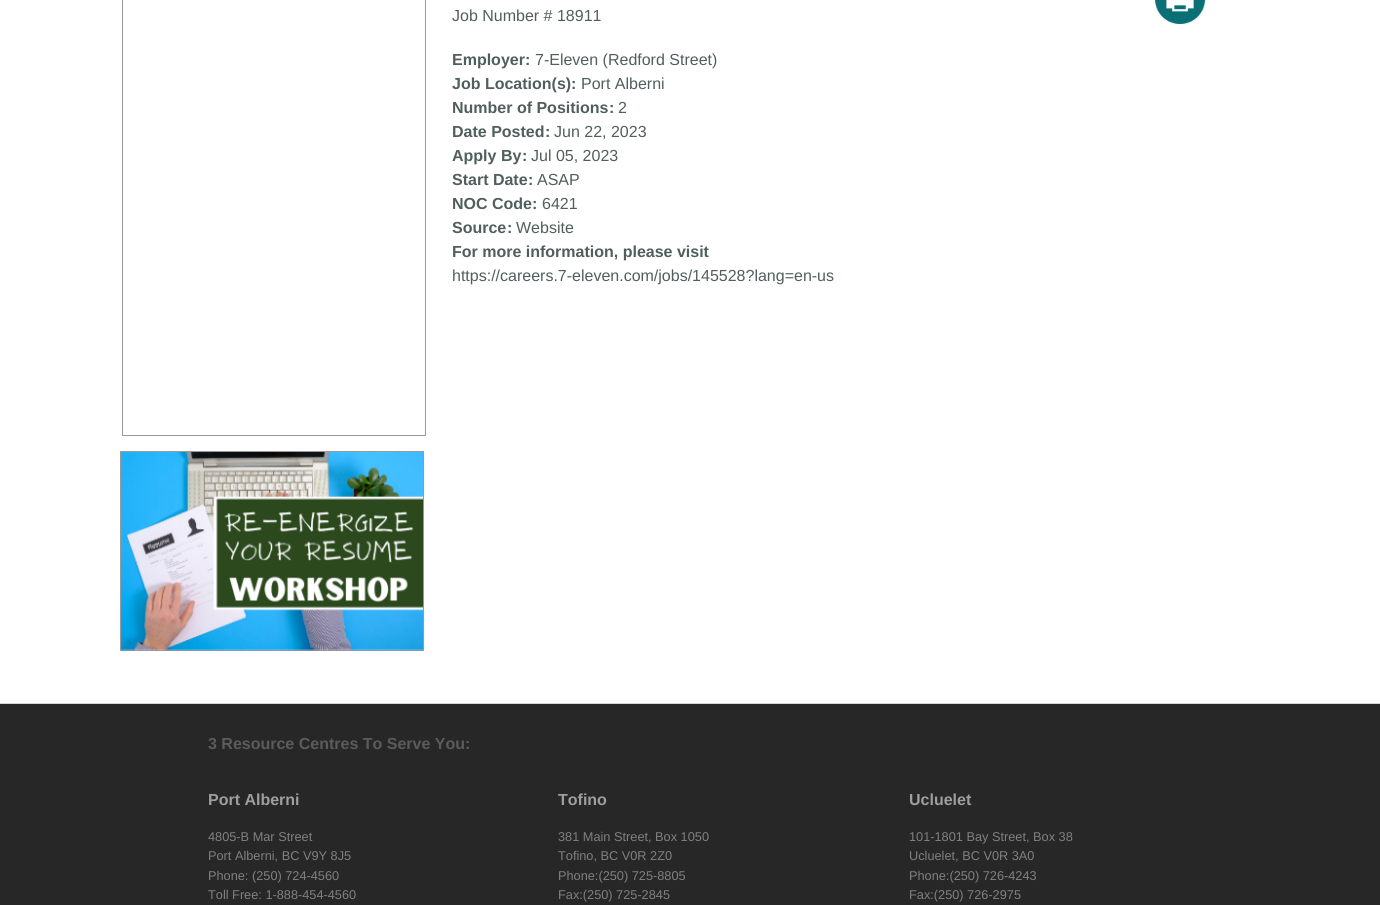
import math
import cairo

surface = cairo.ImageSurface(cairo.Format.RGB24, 1380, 905)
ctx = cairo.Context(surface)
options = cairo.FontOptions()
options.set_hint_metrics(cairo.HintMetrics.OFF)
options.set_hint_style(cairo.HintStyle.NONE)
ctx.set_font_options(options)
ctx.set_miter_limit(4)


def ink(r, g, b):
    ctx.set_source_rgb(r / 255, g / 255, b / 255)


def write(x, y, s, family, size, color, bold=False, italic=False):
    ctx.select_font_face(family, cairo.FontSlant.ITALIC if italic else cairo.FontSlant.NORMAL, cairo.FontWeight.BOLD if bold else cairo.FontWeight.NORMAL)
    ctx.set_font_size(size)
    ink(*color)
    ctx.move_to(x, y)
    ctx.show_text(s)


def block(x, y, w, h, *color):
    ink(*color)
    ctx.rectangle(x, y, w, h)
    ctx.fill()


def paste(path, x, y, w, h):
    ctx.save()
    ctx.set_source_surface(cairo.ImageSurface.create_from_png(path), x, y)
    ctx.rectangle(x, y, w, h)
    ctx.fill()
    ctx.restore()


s1 = dict(family="Liberation Sans", size=16, color=(81, 95, 92))
s2 = dict(family="Liberation Sans", size=16, color=(81, 95, 92), bold=True)
s3 = dict(family="Liberation Sans", size=16, color=(91, 91, 91), bold=True)
s4 = dict(family="Liberation Sans", size=16, color=(158, 158, 158), bold=True)
s5 = dict(family="Liberation Sans", size=12.75, color=(128, 128, 128))

ink(255, 255, 255)
ctx.paint()
ctx.rectangle(122.5, -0.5, 303, 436)
ink(153, 153, 153)
ctx.set_line_width(1)
ctx.stroke()
ctx.rectangle(120.5, 451.5, 303, 199)
ctx.stroke()
paste("pic1.png", 121, 452, 303, 199)
write(452, 21, "Job Number # 18911", **s1)
write(452, 65, "Employer", **s2)
write(525, 65, ":", **s2)
write(535, 65, "7-Eleven (Redford Street)", **s1)
write(452, 89, "Job Location(s)", **s2)
write(571, 89, ":", **s2)
write(581, 89, "Port Alberni", **s1)
write(452, 113, "Number of Positions", **s2)
write(609, 113, ":", **s2)
write(618, 113, "2", **s1)
write(452, 137, "Date Posted", **s2)
write(545, 137, ":", **s2)
write(554, 137, "Jun 22, 2023", **s1)
write(452, 161, "Apply By", **s2)
write(522, 161, ":", **s2)
write(531, 161, "Jul 05, 2023", **s1)
write(452, 185, "Start Date", **s2)
write(528, 185, ":", **s2)
write(537, 185, "ASAP", **s1)
write(452, 209, "NOC Code", **s2)
write(532, 209, ":", **s2)
write(542, 209, "6421", **s1)
write(452, 233, "Source", **s2)
write(507, 233, ":", **s2)
write(516, 233, "Website", **s1)
write(452, 257, "For more information, please visit", **s2)
write(452, 281, "https://careers.7-eleven.com/jobs/145528?lang=en-us", **s1)
paste("pic2.png", 1155, 0, 50, 24)
block(0, 704, 1380, 201, 39, 39, 39)
block(0, 703, 1380, 1, 207, 215, 219)
write(208, 749, "3 Resource Centres To Serve You:", **s3)
write(208, 805, "Port Alberni", **s4)
write(208, 841, "4805-B Mar Street", **s5)
write(208, 860, "Port Alberni, BC V9Y 8J5", **s5)
write(208, 880, "Phone: (250) 724-4560", **s5)
write(208, 899, "Toll Free: 1-888-454-4560", **s5)
write(558, 805, "Tofino", **s4)
write(558, 841, "381 Main Street, Box 1050", **s5)
write(558, 860, "Tofino, BC V0R 2Z0", **s5)
write(558, 880, "Phone:(250) 725-8805", **s5)
write(558, 899, "Fax:(250) 725-2845", **s5)
write(909, 805, "Ucluelet", **s4)
write(909, 841, "101-1801 Bay Street, Box 38", **s5)
write(909, 860, "Ucluelet, BC V0R 3A0", **s5)
write(909, 880, "Phone:(250) 726-4243", **s5)
write(909, 899, "Fax:(250) 726-2975", **s5)
surface.write_to_png("screenshot.png")
